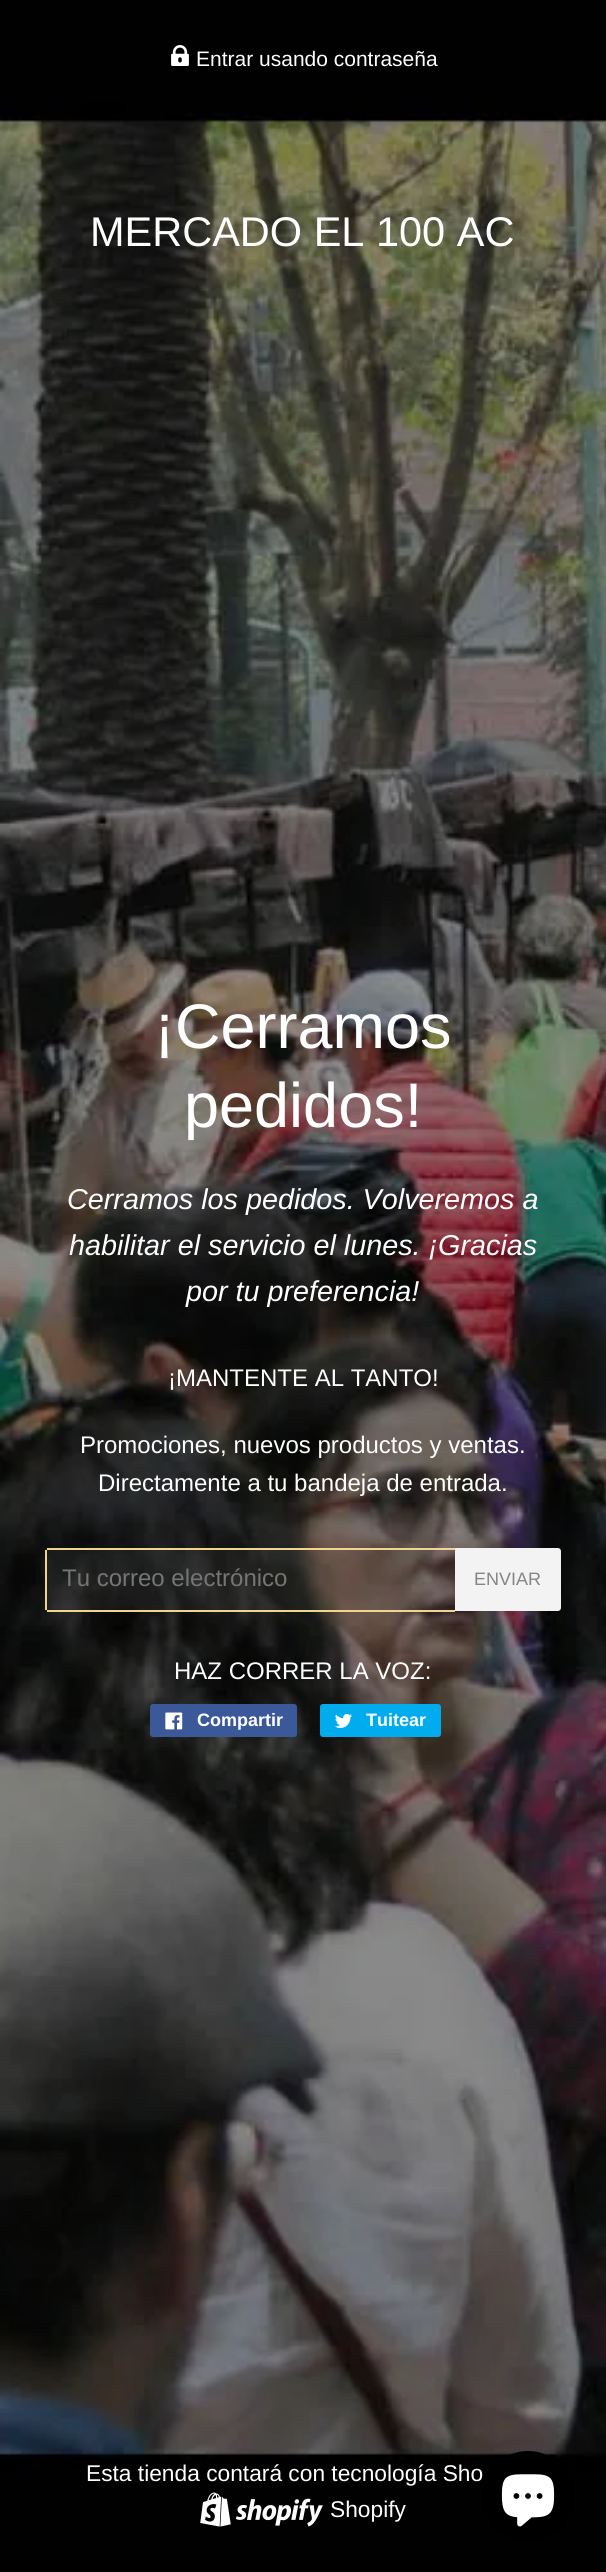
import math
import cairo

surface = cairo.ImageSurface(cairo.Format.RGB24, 606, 2572)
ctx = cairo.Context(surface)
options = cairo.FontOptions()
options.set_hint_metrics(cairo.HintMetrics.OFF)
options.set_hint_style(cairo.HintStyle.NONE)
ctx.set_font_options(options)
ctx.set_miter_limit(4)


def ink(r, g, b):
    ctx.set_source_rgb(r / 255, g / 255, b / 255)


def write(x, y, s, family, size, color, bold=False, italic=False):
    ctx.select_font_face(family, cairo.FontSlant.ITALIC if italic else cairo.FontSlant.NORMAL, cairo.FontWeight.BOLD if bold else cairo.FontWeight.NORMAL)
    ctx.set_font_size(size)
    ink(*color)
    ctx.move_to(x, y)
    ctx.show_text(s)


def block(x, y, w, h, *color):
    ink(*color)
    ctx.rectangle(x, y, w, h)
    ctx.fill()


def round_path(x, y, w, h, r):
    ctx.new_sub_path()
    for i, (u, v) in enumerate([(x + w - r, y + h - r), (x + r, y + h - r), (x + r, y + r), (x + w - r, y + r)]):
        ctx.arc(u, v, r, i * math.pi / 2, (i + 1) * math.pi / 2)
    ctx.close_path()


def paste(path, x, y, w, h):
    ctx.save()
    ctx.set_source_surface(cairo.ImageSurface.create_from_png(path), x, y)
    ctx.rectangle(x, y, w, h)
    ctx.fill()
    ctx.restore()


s1 = dict(family="Liberation Sans", size=21, color=(255, 255, 255))
s2 = dict(family="Liberation Sans", size=41.5, color=(255, 255, 255))
s3 = dict(family="Liberation Sans", size=63, color=(255, 255, 255))
s4 = dict(family="Liberation Sans", size=28.75, color=(255, 255, 255), italic=True)
s5 = dict(family="Liberation Sans", size=24, color=(255, 255, 255))
s6 = dict(family="Liberation Sans", size=24, color=(117, 117, 117))
s7 = dict(family="Liberation Sans", size=18, color=(133, 133, 133))
s8 = dict(family="Liberation Sans", size=18, color=(255, 255, 255), bold=True)
s9 = dict(family="Liberation Sans", size=22.75, color=(255, 255, 255))

ink(255, 255, 255)
ctx.paint()
paste("pic1.png", 0, 0, 606, 2572)
paste("pic2.png", 171, 45, 18, 21)
write(196, 66, "Entrar usando contraseña", **s1)
write(90, 246, "MERCADO EL 100 AC", **s2)
write(154, 1048, "¡Cerramos", **s3)
write(184, 1127, "pedidos!", **s3)
write(67, 1209, "Cerramos los pedidos. Volveremos a", **s4)
write(69, 1255, "habilitar el servicio el lunes. ¡Gracias", **s4)
write(186, 1301, "por tu preferencia!", **s4)
write(168, 1386, "¡MANTENTE AL TANTO!", **s5)
write(80, 1453, "Promociones, nuevos productos y ventas.", **s5)
write(98, 1491, "Directamente a tu bandeja de entrada.", **s5)
ctx.set_source_rgba(0.522, 0.522, 0.522, 0.1)
ctx.new_path()
ctx.move_to(48, 1548)
ctx.line_to(455, 1548)
ctx.line_to(455, 1611)
ctx.line_to(48, 1611)
ctx.curve_to(46.5, 1611, 45, 1609.5, 45, 1608)
ctx.line_to(45, 1551)
ctx.curve_to(45, 1549.5, 46.5, 1548, 48, 1548)
ctx.close_path()
ctx.fill()
block(47, 1548, 408, 2, 239, 213, 145)
block(47, 1610, 408, 2, 239, 213, 145)
block(45, 1550, 2, 60, 239, 213, 145)
write(62, 1586, "Tu correo electrónico", **s6)
ink(243, 243, 243)
ctx.new_path()
ctx.move_to(455, 1548)
ctx.line_to(558, 1548)
ctx.curve_to(559.5, 1548, 561, 1549.5, 561, 1551)
ctx.line_to(561, 1608)
ctx.curve_to(561, 1609.5, 559.5, 1611, 558, 1611)
ctx.line_to(455, 1611)
ctx.close_path()
ctx.fill()
write(474, 1585, "ENVIAR", **s7)
write(174, 1679, "HAZ CORRER LA VOZ:", **s5)
ink(59, 89, 152)
round_path(150, 1704, 147, 33, 3)
ctx.fill()
paste("pic3.png", 165, 1712, 18, 18)
write(197, 1726, "Compartir", **s8)
ink(0, 172, 237)
round_path(320, 1704, 121, 33, 3)
ctx.fill()
paste("pic4.png", 335, 1713, 17, 15)
write(366, 1726, "Tuitear", **s8)
write(86, 2481, "Esta tienda contará con tecnología Sho", **s9)
paste("pic5.png", 200, 2492, 123, 35)
write(330, 2517, "Shopify", **s9)
ink(0, 0, 0)
ctx.new_path()
ctx.arc(528, 2496, 45, 0, 2 * math.pi)
ctx.fill()
paste("pic6.png", 501, 2474, 54, 53)
surface.write_to_png("screenshot.png")
